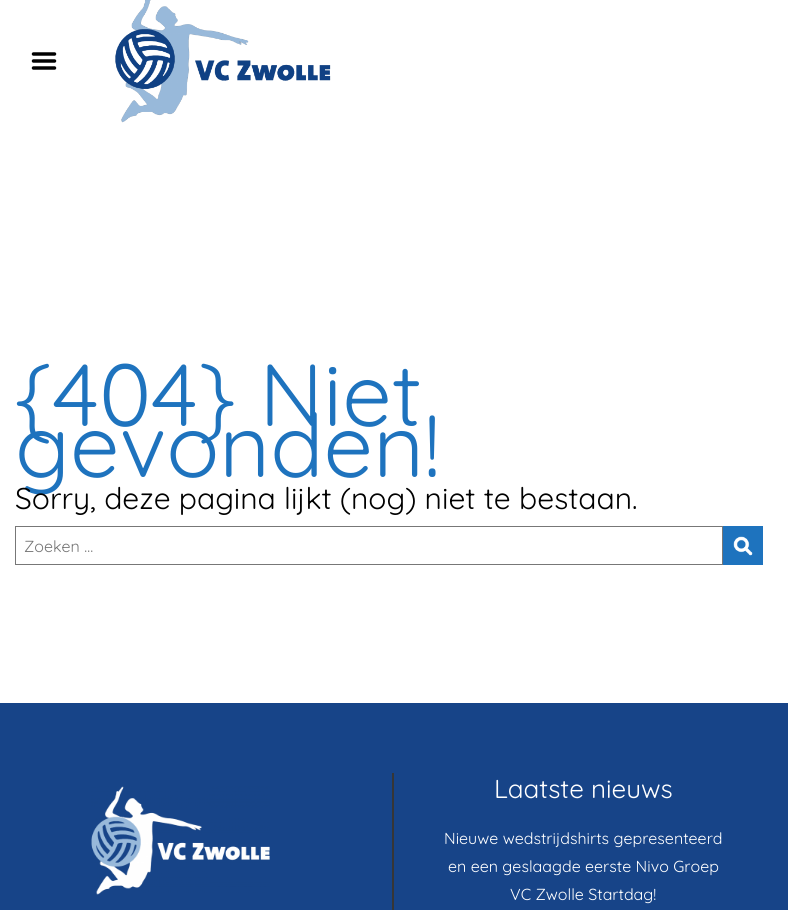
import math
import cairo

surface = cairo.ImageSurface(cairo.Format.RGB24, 788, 910)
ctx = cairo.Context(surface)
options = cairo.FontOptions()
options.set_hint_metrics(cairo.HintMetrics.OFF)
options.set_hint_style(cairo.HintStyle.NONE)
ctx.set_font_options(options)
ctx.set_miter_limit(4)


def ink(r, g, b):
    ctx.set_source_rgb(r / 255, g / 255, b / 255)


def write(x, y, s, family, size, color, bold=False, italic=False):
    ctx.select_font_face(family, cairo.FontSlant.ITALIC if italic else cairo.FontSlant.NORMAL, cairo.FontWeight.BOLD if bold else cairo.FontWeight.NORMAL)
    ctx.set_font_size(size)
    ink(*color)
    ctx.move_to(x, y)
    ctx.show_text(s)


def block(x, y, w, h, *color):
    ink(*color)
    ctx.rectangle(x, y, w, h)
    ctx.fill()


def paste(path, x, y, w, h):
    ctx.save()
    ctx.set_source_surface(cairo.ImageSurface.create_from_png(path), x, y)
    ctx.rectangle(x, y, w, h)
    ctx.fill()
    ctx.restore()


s1 = dict(family="Quicksand", size=88, color=(30, 115, 190))
s2 = dict(family="Quicksand", size=30, color=(0, 0, 0))
s3 = dict(family="Quicksand", size=16, color=(117, 117, 117))
s4 = dict(family="Quicksand", size=26, color=(255, 255, 255))
s5 = dict(family="Quicksand", size=16, color=(255, 255, 255))

ink(255, 255, 255)
ctx.paint()
paste("pic1.png", 31, 52, 26, 18)
paste("pic2.png", 115, 0, 216, 123)
write(15, 426, "{404} Niet", **s1)
write(15, 477, "gevonden!", **s1)
write(15, 509, "Sorry, deze pagina lijkt (nog) niet te bestaan.", **s2)
ctx.rectangle(15.5, 526.5, 707, 38)
ink(119, 119, 119)
ctx.set_line_width(1)
ctx.stroke()
write(24, 552, "Zoeken …", **s3)
block(723, 526, 40, 39, 30, 115, 190)
paste("pic3.png", 733, 536, 20, 20)
block(0, 703, 788, 207, 23, 68, 136)
block(392, 773, 2, 137, 54, 54, 54)
paste("pic4.png", 91, 786, 179, 109)
write(494, 798, "Laatste nieuws", **s4)
write(444, 844, "Nieuwe wedstrijdshirts gepresenteerd", **s5)
write(448, 872, "en een geslaagde eerste Nivo Groep", **s5)
write(510, 900, "VC Zwolle Startdag!", **s5)
surface.write_to_png("screenshot.png")
